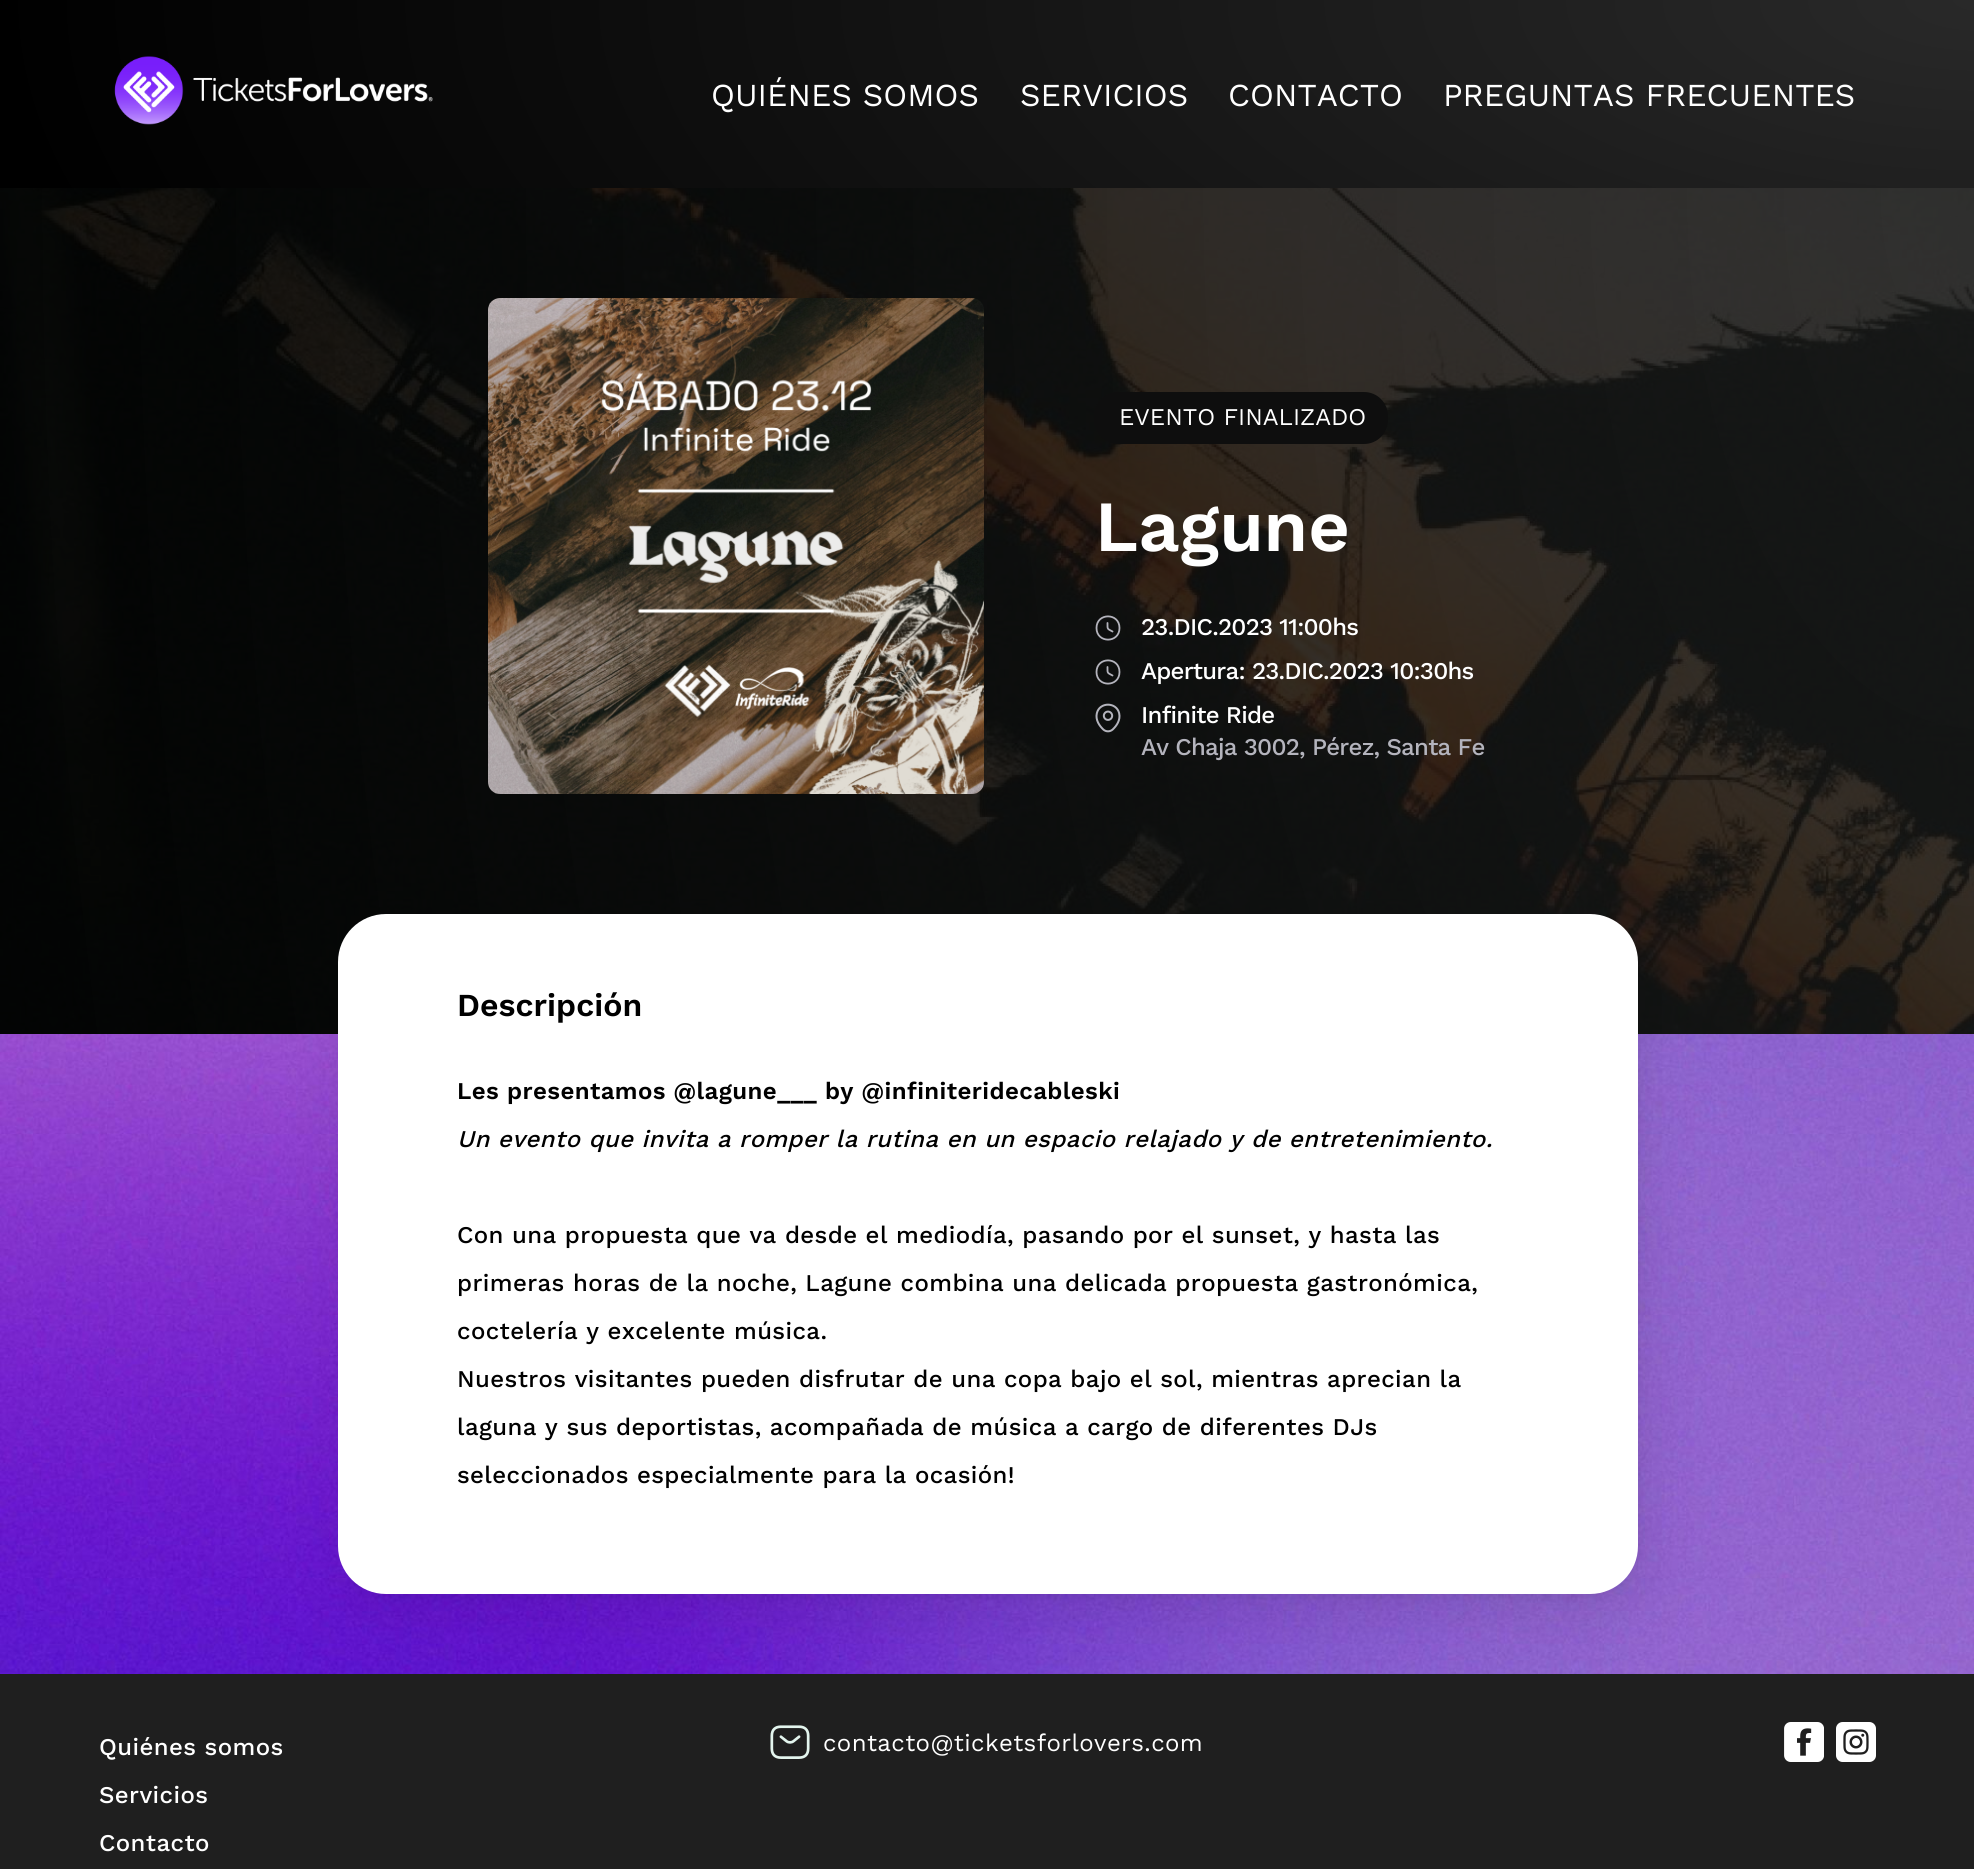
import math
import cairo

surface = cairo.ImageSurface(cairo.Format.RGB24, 1974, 1869)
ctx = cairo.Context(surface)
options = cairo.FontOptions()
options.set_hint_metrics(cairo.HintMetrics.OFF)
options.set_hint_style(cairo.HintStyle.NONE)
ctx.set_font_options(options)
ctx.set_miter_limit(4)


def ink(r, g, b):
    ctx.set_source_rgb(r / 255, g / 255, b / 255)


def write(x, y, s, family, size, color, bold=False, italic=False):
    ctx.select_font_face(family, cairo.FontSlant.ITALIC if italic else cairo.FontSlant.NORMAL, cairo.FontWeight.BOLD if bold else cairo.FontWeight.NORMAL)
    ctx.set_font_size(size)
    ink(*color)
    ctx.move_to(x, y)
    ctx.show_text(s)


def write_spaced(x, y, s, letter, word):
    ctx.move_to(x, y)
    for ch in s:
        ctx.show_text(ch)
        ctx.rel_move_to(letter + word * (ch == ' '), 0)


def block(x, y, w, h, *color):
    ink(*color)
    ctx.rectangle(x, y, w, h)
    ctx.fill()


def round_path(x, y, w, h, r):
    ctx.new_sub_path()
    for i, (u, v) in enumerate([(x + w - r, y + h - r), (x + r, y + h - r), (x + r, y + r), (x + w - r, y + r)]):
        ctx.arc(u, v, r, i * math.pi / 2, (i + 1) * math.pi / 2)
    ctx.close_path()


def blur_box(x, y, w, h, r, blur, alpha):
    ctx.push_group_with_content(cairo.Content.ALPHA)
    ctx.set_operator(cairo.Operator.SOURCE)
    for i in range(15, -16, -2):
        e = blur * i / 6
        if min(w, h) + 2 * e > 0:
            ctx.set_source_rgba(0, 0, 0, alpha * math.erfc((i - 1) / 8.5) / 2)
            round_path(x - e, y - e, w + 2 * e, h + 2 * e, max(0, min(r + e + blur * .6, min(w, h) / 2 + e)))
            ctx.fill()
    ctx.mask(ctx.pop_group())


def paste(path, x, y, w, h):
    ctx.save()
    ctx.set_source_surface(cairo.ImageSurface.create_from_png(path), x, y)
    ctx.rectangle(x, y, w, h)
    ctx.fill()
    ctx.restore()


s1 = dict(family="Work Sans", size=32, color=(255, 255, 255))
s2 = dict(family="Work Sans", size=24, color=(255, 255, 255))
s3 = dict(family="Work Sans SemiBold", size=72, color=(255, 255, 255))
s4 = dict(family="Work Sans SemiBold", size=32, color=(0, 0, 0))

ink(255, 255, 255)
ctx.paint()
gradient = cairo.RadialGradient(0, 0, 0, 0, 0, 1)
gradient.set_matrix(cairo.Matrix(1 / 1974, 0, 0, 1 / 817, -1 * 1974 / 1974, -1 * 0 / 817))
gradient.add_color_stop_rgba(0, 0.161, 0.161, 0.161, 1)
gradient.add_color_stop_rgba(1, 0, 0, 0, 1)
ctx.set_source(gradient)
ctx.rectangle(0, 0, 1974, 188)
ctx.fill()
paste("pic1.png", 114, 56, 319, 69)
write(711, 106, "QUIÉNES SOMOS", **s1)
write(1020, 106, "SERVICIOS", **s1)
write(1228, 106, "CONTACTO", **s1)
write(1443, 106, "PREGUNTAS FRECUENTES", **s1)
paste("pic2.png", 0, 1034, 1974, 640)
block(0, 188, 1974, 846, 0, 0, 0)
paste("pic3.png", 0, 188, 1974, 846)
gradient = cairo.RadialGradient(0, 0, 0, 0, 0, 1)
gradient.set_matrix(cairo.Matrix(1 / 1974, 0, 0, 1 / 3675, -1 * 1974 / 1974, -1 * 188 / 3675))
gradient.add_color_stop_rgba(0, 0.161, 0.161, 0.161, 0.5)
gradient.add_color_stop_rgba(1, 0, 0, 0, 0.5)
ctx.set_source(gradient)
ctx.rectangle(0, 188, 1974, 846)
ctx.fill()
paste("pic4.png", 488, 298, 496, 496)
ink(14, 14, 14)
round_path(1094, 392, 294, 52, 24)
ctx.fill()
write(1119, 425, "EVENTO FINALIZADO", **s2)
write(1095, 551, "Lagune", **s3)
ctx.new_path()
ctx.move_to(1119.5, 628)
ctx.curve_to(1119.5, 643.5, 1096.5, 643.5, 1096.5, 628)
ctx.curve_to(1096.5, 612.5, 1119.5, 612.5, 1119.5, 628)
ctx.close_path()
ctx.move_to(1112.5, 631.5)
ctx.curve_to(1107, 628.5, 1107.5, 629.5, 1107.5, 623)
ink(180, 180, 189)
ctx.set_line_width(1.8)
ctx.set_line_cap(cairo.LineCap.ROUND)
ctx.set_line_join(cairo.LineJoin.ROUND)
ctx.stroke()
ctx.select_font_face("Work Sans Medium")
ctx.set_font_size(24)
ink(255, 255, 255)
write_spaced(1141, 635, "23.DIC.2023 11:00hs", -0.75, 0)
ctx.new_path()
ctx.move_to(1119.5, 672)
ctx.curve_to(1119.5, 687.5, 1096.5, 687.5, 1096.5, 672)
ctx.curve_to(1096.5, 656.5, 1119.5, 656.5, 1119.5, 672)
ctx.close_path()
ctx.move_to(1112.5, 675.5)
ctx.curve_to(1107, 672.5, 1107.5, 673.5, 1107.5, 667)
ink(180, 180, 189)
ctx.stroke()
ink(255, 255, 255)
write_spaced(1141, 679, "Apertura: 23.DIC.2023 10:30hs", -0.75, 0)
paste("pic5.png", 1095, 703, 26, 30)
write_spaced(1141, 723, "Infinite Ride", -0.75, 0)
ink(180, 180, 189)
write_spaced(1141, 755, "Av Chaja 3002, Pérez, Santa Fe", -0.75, 0)
ink(0, 0, 0)
blur_box(340, 918, 1300, 680, 48, 5.5, 0.05)
blur_box(346, 936, 1300, 680, 48, 33, 0.09)
ink(255, 255, 255)
round_path(338, 914, 1300, 680, 48)
ctx.fill()
write(457, 1016, "Descripción", **s4)
ctx.set_font_size(24)
write_spaced(457, 1099, "Les presentamos @lagune___ by @infiniteridecableski", 0.4, 0)
ctx.select_font_face("Work Sans Medium", cairo.FontSlant.ITALIC)
write_spaced(457, 1147, "Un evento que invita a romper la rutina en un espacio relajado y de entretenimiento.", 0.4, 0)
ctx.select_font_face("Work Sans Medium")
write_spaced(457, 1243, "Con una propuesta que va desde el mediodía, pasando por el sunset, y hasta las", 0.4, 0)
write_spaced(457, 1291, "primeras horas de la noche, Lagune combina una delicada propuesta gastronómica,", 0.4, 0)
write_spaced(457, 1339, "coctelería y excelente música.", 0.4, 0)
write_spaced(457, 1387, "Nuestros visitantes pueden disfrutar de una copa bajo el sol, mientras aprecian la", 0.4, 0)
write_spaced(457, 1435, "laguna y sus deportistas, acompañada de música a cargo de diferentes DJs", 0.4, 0)
write_spaced(457, 1483, "seleccionados especialmente para la ocasión!", 0.4, 0)
block(0, 1674, 1974, 195, 31, 31, 31)
ink(255, 255, 255)
write_spaced(99, 1755, "Quiénes somos", 0.4, 0)
write_spaced(99, 1803, "Servicios", 0.4, 0)
write_spaced(99, 1851, "Contacto", 0.4, 0)
paste("pic6.png", 770, 1725, 40, 34)
ctx.select_font_face("Work Sans")
write_spaced(823, 1751, "contacto@ticketsforlovers.com", 0.4, 0)
paste("pic7.png", 1784, 1722, 40, 40)
paste("pic8.png", 1836, 1722, 40, 40)
surface.write_to_png("screenshot.png")
